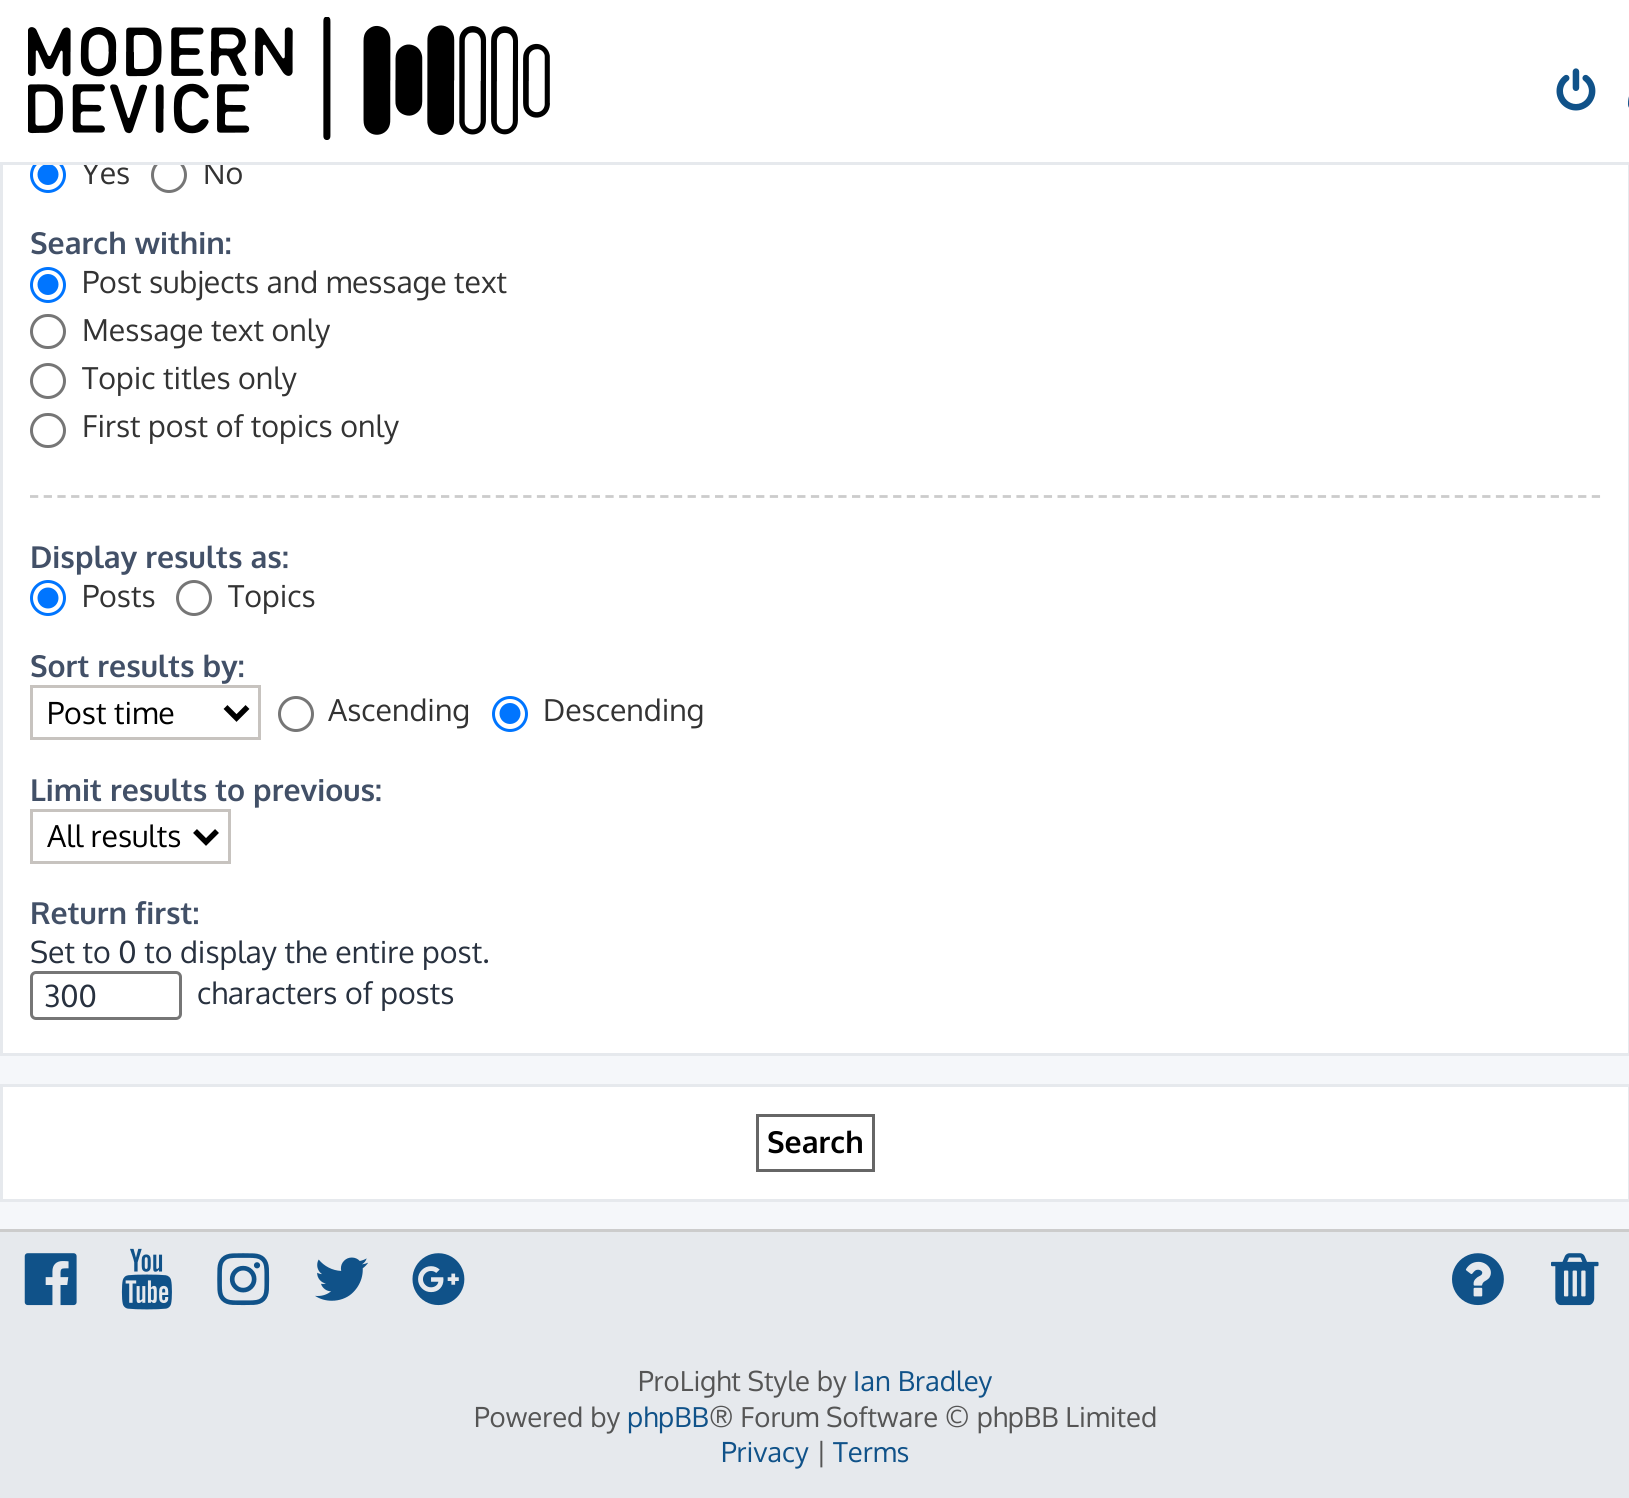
import math
import cairo

surface = cairo.ImageSurface(cairo.Format.RGB24, 1629, 1498)
ctx = cairo.Context(surface)
options = cairo.FontOptions()
options.set_hint_metrics(cairo.HintMetrics.OFF)
options.set_hint_style(cairo.HintStyle.NONE)
ctx.set_font_options(options)
ctx.set_miter_limit(4)


def ink(r, g, b):
    ctx.set_source_rgb(r / 255, g / 255, b / 255)


def write(x, y, s, family, size, color, bold=False, italic=False):
    ctx.select_font_face(family, cairo.FontSlant.ITALIC if italic else cairo.FontSlant.NORMAL, cairo.FontWeight.BOLD if bold else cairo.FontWeight.NORMAL)
    ctx.set_font_size(size)
    ink(*color)
    ctx.move_to(x, y)
    ctx.show_text(s)


def block(x, y, w, h, *color):
    ink(*color)
    ctx.rectangle(x, y, w, h)
    ctx.fill()


def round_path(x, y, w, h, r):
    ctx.new_sub_path()
    for i, (u, v) in enumerate([(x + w - r, y + h - r), (x + r, y + h - r), (x + r, y + r), (x + w - r, y + r)]):
        ctx.arc(u, v, r, i * math.pi / 2, (i + 1) * math.pi / 2)
    ctx.close_path()


def paste(path, x, y, w, h):
    ctx.save()
    ctx.set_source_surface(cairo.ImageSurface.create_from_png(path), x, y)
    ctx.rectangle(x, y, w, h)
    ctx.fill()
    ctx.restore()


s1 = dict(family="Oxygen", size=30.25, color=(51, 51, 51))
s2 = dict(family="Oxygen", size=30.25, color=(66, 80, 103), bold=True)
s3 = dict(family="Oxygen", size=30.25, color=(0, 0, 0))
s4 = dict(family="Oxygen", size=30.25, color=(40, 49, 63))
s5 = dict(family="Oxygen", size=30.25, color=(0, 0, 0), bold=True)
s6 = dict(family="Oxygen", size=27.5, color=(85, 85, 85))
s7 = dict(family="Oxygen", size=27.5, color=(16, 82, 137))

ink(245, 247, 250)
ctx.paint()
block(3, 165, 1625, 888, 255, 255, 255)
ctx.rectangle(1.5, -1.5, 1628, 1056)
ink(230, 233, 237)
ctx.set_line_width(3)
ctx.stroke()
ctx.arc(48, 175, 16.5, 0, 2 * math.pi)
ink(0, 117, 255)
ctx.stroke()
ctx.arc(169, 175, 16.5, 0, 2 * math.pi)
ink(118, 118, 118)
ctx.stroke()
block(0, 0, 1629, 162, 255, 255, 255)
ink(0, 117, 255)
ctx.arc(48, 174.5, 10.5, 0, 2 * math.pi)
ctx.fill()
write(82, 184, "Yes", **s1)
write(203, 184, "No", **s1)
block(0, 162, 1629, 3, 230, 233, 237)
paste("pic1.png", 28, 17, 522, 123)
paste("pic2.png", 1556, 68, 40, 43)
paste("pic3.png", 1628, 96, 1, 12)
write(30, 254, "Search within:", **s2)
ctx.new_path()
ctx.arc(48, 285, 16.5, 0, 2 * math.pi)
ink(0, 117, 255)
ctx.stroke()
ctx.arc(48, 284.5, 10.5, 0, 2 * math.pi)
ctx.fill()
write(82, 293, "Post subjects and message text", **s1)
round_path(31.5, 315.5, 33, 32, 16)
ink(118, 118, 118)
ctx.stroke()
write(82, 341, "Message text only", **s1)
ctx.new_path()
ctx.arc(48, 381, 16.5, 0, 2 * math.pi)
ink(118, 118, 118)
ctx.stroke()
write(82, 389, "Topic titles only", **s1)
round_path(31.5, 414.5, 33, 32, 16)
ink(118, 118, 118)
ctx.stroke()
write(82, 437, "First post of topics only", **s1)
ctx.new_path()
ctx.move_to(30, 496.5)
ctx.line_to(1600.5, 496.5)
ink(204, 204, 204)
ctx.set_line_width(2.8)
ctx.set_dash([8.25, 5.45])
ctx.stroke()
write(30, 568, "Display results as:", **s2)
ctx.new_path()
ctx.arc(48, 598, 16.5, 0, 2 * math.pi)
ink(0, 117, 255)
ctx.set_line_width(3)
ctx.set_dash([])
ctx.stroke()
ctx.arc(48, 598, 10.5, 0, 2 * math.pi)
ctx.fill()
write(82, 607, "Posts", **s1)
ctx.new_path()
ctx.arc(194, 598, 16.5, 0, 2 * math.pi)
ink(118, 118, 118)
ctx.stroke()
write(228, 607, "Topics", **s1)
write(30, 677, "Sort results by:", **s2)
ctx.rectangle(31.5, 686.5, 228, 52)
ink(199, 195, 191)
ctx.stroke()
ctx.new_path()
ctx.move_to(225.5, 707)
ctx.line_to(236.5, 718)
ctx.line_to(247.5, 707)
ink(0, 0, 0)
ctx.set_line_width(5.5)
ctx.stroke()
write(47, 724, "Post time", **s3)
ctx.new_path()
ctx.arc(296, 714, 16.5, 0, 2 * math.pi)
ink(118, 118, 118)
ctx.set_line_width(3)
ctx.stroke()
write(328, 721, "Ascending", **s1)
ctx.new_path()
ctx.arc(510, 714, 16.5, 0, 2 * math.pi)
ink(0, 117, 255)
ctx.stroke()
ctx.arc(510, 713.5, 10.5, 0, 2 * math.pi)
ctx.fill()
write(543, 721, "Descending", **s1)
write(30, 801, "Limit results to previous:", **s2)
ctx.rectangle(31.5, 810.5, 198, 52)
ink(199, 195, 191)
ctx.stroke()
ctx.new_path()
ctx.move_to(195, 831)
ctx.line_to(206, 842)
ctx.line_to(217, 831)
ink(0, 0, 0)
ctx.set_line_width(5.5)
ctx.stroke()
write(47, 847, "All results", **s3)
write(30, 924, "Return first:", **s2)
write(30, 963, "Set to 0 to display the entire post.", **s4)
round_path(31.5, 972.5, 149, 46, 4.5)
ink(118, 118, 118)
ctx.set_line_width(3)
ctx.stroke()
write(44, 1007, "300", **s4)
write(197, 1004, "characters of posts", **s4)
ink(255, 255, 255)
ctx.rectangle(1.5, 1085.5, 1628, 115)
ctx.fill_preserve()
ink(230, 233, 237)
ctx.stroke()
ctx.rectangle(757.5, 1115.5, 116, 55)
ink(102, 102, 102)
ctx.stroke()
write(767, 1153, "Search", **s5)
block(0, 1232, 1629, 266, 230, 233, 237)
block(0, 1229, 1629, 3, 204, 204, 204)
paste("pic4.png", 24, 1253, 53, 53)
paste("pic5.png", 121, 1248, 51, 62)
paste("pic6.png", 217, 1253, 53, 53)
paste("pic7.png", 315, 1257, 53, 44)
paste("pic8.png", 412, 1253, 53, 53)
paste("pic9.png", 1452, 1253, 52, 53)
paste("pic10.png", 1551, 1253, 48, 53)
write(638, 1391, "ProLight Style by", **s6)
write(853, 1391, "Ian Bradley", **s7)
write(474, 1427, "Powered by", **s6)
write(627, 1427, "phpBB", **s7)
write(709, 1427, "® Forum Software © phpBB Limited", **s6)
write(721, 1462, "Privacy", **s7)
write(816, 1462, "|", **s6)
write(833, 1462, "Terms", **s7)
surface.write_to_png("screenshot.png")
